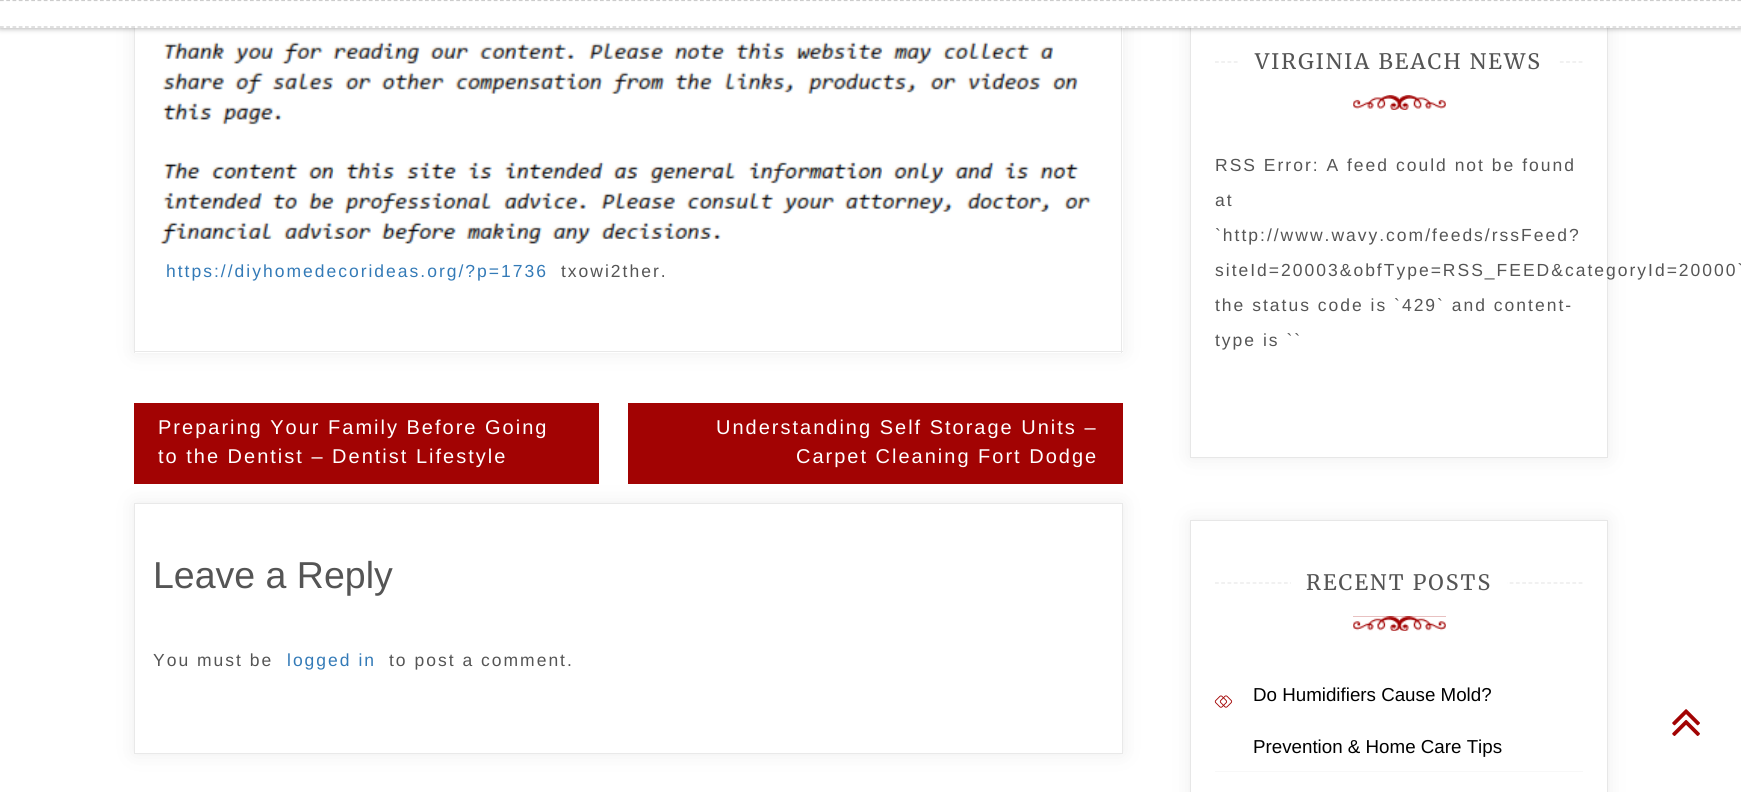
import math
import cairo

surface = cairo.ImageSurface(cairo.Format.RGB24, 1741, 792)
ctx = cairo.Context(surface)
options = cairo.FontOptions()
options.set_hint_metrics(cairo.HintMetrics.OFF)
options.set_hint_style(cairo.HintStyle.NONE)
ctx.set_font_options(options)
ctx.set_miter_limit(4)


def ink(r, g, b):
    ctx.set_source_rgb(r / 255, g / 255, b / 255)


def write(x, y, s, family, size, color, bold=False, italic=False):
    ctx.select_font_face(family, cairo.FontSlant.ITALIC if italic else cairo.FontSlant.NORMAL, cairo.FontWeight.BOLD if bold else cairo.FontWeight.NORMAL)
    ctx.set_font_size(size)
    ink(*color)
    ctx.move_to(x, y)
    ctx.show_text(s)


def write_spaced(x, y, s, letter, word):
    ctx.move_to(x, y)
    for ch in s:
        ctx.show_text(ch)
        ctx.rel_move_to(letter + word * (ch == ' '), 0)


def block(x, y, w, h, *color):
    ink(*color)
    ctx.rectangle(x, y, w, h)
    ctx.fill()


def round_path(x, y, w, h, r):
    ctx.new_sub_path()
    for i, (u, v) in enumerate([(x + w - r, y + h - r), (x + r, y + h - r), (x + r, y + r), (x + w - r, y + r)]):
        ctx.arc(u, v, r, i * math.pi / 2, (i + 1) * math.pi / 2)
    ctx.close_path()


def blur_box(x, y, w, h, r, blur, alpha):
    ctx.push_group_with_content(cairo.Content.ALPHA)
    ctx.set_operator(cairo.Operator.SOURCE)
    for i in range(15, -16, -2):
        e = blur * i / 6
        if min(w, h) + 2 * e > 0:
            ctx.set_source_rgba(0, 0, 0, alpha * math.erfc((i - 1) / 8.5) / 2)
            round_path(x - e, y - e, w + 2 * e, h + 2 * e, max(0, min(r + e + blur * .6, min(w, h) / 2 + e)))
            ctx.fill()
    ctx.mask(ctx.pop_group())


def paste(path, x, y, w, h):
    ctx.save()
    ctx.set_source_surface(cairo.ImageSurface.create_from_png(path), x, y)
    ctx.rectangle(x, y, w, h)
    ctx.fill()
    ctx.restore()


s1 = dict(family="Liberation Sans", size=37.5, color=(85, 85, 85))
s2 = dict(family="Liberation Sans", size=18.75, color=(0, 0, 0))

ink(255, 255, 255)
ctx.paint()
ink(204, 204, 204)
blur_box(134, -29, 989, 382, 0, 9.5, 0.34)
block(135, 28, 988, 325, 255, 255, 255)
block(1121, 28, 1, 325, 233, 233, 233)
block(134, 351, 989, 1, 233, 233, 233)
block(134, 28, 1, 325, 233, 233, 233)
ink(204, 204, 204)
blur_box(1190, -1, 418, 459, 0, 9.5, 0.34)
block(1191, 28, 416, 429, 255, 255, 255)
ctx.rectangle(1190.5, -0.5, 417, 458)
ink(231, 231, 231)
ctx.set_line_width(1)
ctx.stroke()
ink(0, 0, 0)
blur_box(0, 0, 1741, 28, 0, 3, 0.38)
block(0, 0, 1741, 28, 255, 255, 255)
ctx.new_path()
ctx.move_to(0, 0.5)
ctx.line_to(1741, 0.5)
ink(204, 204, 204)
ctx.set_line_width(1.2)
ctx.set_dash([3.75, 2.5])
ctx.stroke()
ctx.new_path()
ctx.move_to(0, 27)
ctx.line_to(1741, 27)
ctx.stroke()
paste("pic1.png", 160, 42, 931, 202)
ctx.select_font_face("Liberation Sans")
ctx.set_font_size(17.5)
ink(51, 122, 183)
write_spaced(166, 277, "https://diyhomedecorideas.org/?p=1736", 2, 0)
ink(85, 85, 85)
write_spaced(561, 277, "txowi2ther.", 2, 0)
ink(204, 204, 204)
blur_box(134, 503, 989, 251, 0, 9.5, 0.34)
block(134, 403, 465, 81, 162, 3, 3)
ctx.set_font_size(20)
ink(255, 255, 255)
write_spaced(158, 434, "Preparing Your Family Before Going", 2, 0)
write_spaced(158, 463, "to the Dentist – Dentist Lifestyle", 2, 0)
block(628, 403, 495, 81, 162, 3, 3)
ink(255, 255, 255)
write_spaced(716, 434, "Understanding Self Storage Units –", 2, 0)
write_spaced(796, 463, "Carpet Cleaning Fort Dodge", 2, 0)
ctx.rectangle(134.5, 503.5, 988, 250)
ctx.fill_preserve()
ink(233, 233, 233)
ctx.set_line_width(1)
ctx.set_dash([])
ctx.stroke()
write(153, 588, "Leave a Reply", **s1)
ctx.set_font_size(17.5)
write_spaced(153, 666, "You must be", 2, 0)
ink(51, 122, 183)
write_spaced(287, 666, "logged in", 2, 0)
ink(85, 85, 85)
write_spaced(389, 666, "to post a comment.", 2, 0)
ctx.new_path()
ctx.move_to(1215, 62)
ctx.line_to(1582.5, 62)
ink(231, 231, 231)
ctx.set_line_width(1.2)
ctx.set_dash([3.75, 2.52])
ctx.stroke()
block(1240, 61, 318, 2, 255, 255, 255)
ctx.select_font_face("Merriweather")
ctx.set_font_size(21.25)
ink(85, 85, 85)
write_spaced(1255, 69, "VIRGINIA BEACH NEWS", 2.1, 0)
block(1353, 95, 93, 15, 162, 3, 3)
paste("pic2.png", 1353, 95, 93, 15)
ctx.select_font_face("Liberation Sans")
ctx.set_font_size(17.5)
ink(85, 85, 85)
write_spaced(1215, 171, "RSS Error: A feed could not be found", 2, 0)
write_spaced(1215, 206, "at", 2, 0)
write_spaced(1215, 241, "`http://www.wavy.com/feeds/rssFeed?", 2, 0)
write_spaced(1215, 276, "siteId=20003&obfType=RSS_FEED&categoryId=20000`", 2, 0)
write_spaced(1215, 311, "the status code is `429` and content-", 2, 0)
write_spaced(1215, 346, "type is ``", 2, 0)
ink(204, 204, 204)
blur_box(1190, 520, 418, 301, 0, 9.5, 0.34)
ink(255, 255, 255)
ctx.rectangle(1190.5, 520.5, 417, 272)
ctx.fill_preserve()
ink(231, 231, 231)
ctx.set_line_width(1)
ctx.set_dash([])
ctx.stroke()
ctx.new_path()
ctx.move_to(1215, 583)
ctx.line_to(1582.5, 583)
ctx.set_line_width(1.2)
ctx.set_dash([3.75, 2.52])
ctx.stroke()
block(1291, 582, 216, 2, 255, 255, 255)
ctx.select_font_face("Merriweather")
ctx.set_font_size(21.25)
ink(85, 85, 85)
write_spaced(1306, 590, "RECENT POSTS", 2.1, 0)
block(1353, 616, 93, 15, 162, 3, 3)
paste("pic3.png", 1353, 616, 93, 15)
block(1215, 771, 368, 1, 248, 248, 248)
paste("pic4.png", 1214, 695, 14, 13)
paste("pic5.png", 1219, 695, 14, 13)
write(1253, 701, "Do Humidifiers Cause Mold?", **s2)
write(1253, 753, "Prevention & Home Care Tips", **s2)
paste("pic6.png", 1672, 709, 28, 27)
surface.write_to_png("screenshot.png")
